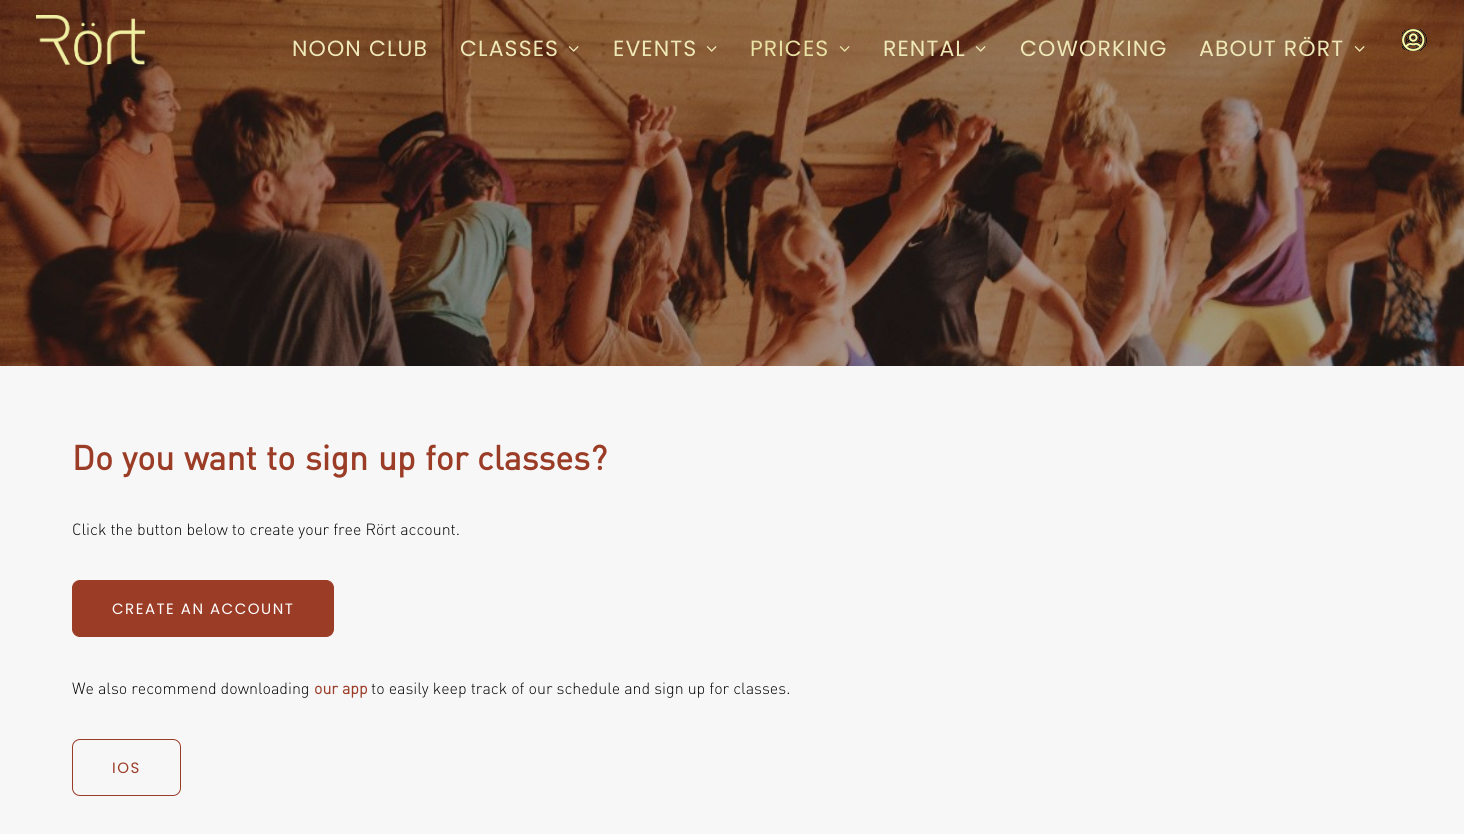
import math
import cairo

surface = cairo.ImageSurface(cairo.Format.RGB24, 1464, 834)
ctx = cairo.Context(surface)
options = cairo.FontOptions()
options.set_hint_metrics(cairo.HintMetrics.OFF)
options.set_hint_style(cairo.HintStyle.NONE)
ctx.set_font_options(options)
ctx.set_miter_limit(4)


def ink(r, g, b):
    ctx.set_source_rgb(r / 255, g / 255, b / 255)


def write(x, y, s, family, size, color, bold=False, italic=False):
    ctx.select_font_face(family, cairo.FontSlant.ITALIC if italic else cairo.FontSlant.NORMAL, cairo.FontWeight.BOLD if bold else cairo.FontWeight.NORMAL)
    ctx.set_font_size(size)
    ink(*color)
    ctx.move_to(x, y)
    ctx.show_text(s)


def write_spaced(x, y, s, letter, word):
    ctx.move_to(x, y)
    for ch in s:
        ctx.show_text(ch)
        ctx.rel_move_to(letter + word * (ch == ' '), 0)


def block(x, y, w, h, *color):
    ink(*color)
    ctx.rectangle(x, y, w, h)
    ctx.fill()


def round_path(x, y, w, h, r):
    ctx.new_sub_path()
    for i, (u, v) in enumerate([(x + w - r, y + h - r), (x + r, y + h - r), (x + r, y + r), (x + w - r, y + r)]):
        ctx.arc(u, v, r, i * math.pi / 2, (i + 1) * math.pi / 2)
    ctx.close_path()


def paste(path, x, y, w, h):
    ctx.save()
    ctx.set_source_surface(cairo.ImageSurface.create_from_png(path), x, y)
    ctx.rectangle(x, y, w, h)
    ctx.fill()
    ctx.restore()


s1 = dict(family="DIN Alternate", size=34, color=(155, 60, 39), bold=True)
s2 = dict(family="DIN Light", size=16, color=(0, 0, 0))
s3 = dict(family="DIN", size=16, color=(155, 60, 39), bold=True)

ink(255, 255, 255)
ctx.paint()
paste("pic8.png", 0, 0, 1464, 366)
paste("pic1.png", 36, 15, 109, 50)
ctx.select_font_face("Poppins")
ctx.set_font_size(22)
ink(239, 233, 184)
write_spaced(292, 56, "NOON CLUB", 1.1, 0)
write_spaced(460, 56, "CLASSES", 1.1, 0)
paste("pic2.png", 568, 46, 11, 6)
write_spaced(613, 56, "EVENTS", 1.1, 0)
paste("pic3.png", 706, 46, 11, 6)
ink(233, 226, 164)
write_spaced(750, 56, "PRICES", 1.1, 0)
paste("pic4.png", 839, 46, 11, 6)
ink(239, 233, 184)
write_spaced(883, 56, "RENTAL", 1.1, 0)
paste("pic5.png", 975, 46, 11, 6)
write_spaced(1020, 56, "COWORKING", 1.1, 0)
write_spaced(1199, 56, "ABOUT RÖRT", 1.1, 0)
paste("pic6.png", 1354, 46, 11, 6)
paste("pic7.png", 1402, 29, 25, 22)
block(0, 366, 1464, 468, 247, 247, 247)
write(72, 470, "Do", **s1)
write(122, 470, "you", **s1)
write(184, 470, "want", **s1)
write(266, 470, "to", **s1)
write(305, 470, "sign", **s1)
write(378, 470, "up", **s1)
write(425, 470, "for", **s1)
write(477, 470, "classes?", **s1)
write(72, 535, "Click the button below to create your free Rört account.", **s2)
ink(155, 60, 39)
round_path(72.5, 580.5, 261, 56, 7.5)
ctx.fill_preserve()
ctx.set_line_width(1)
ctx.stroke()
ctx.select_font_face("Poppins")
ctx.set_font_size(15)
ink(255, 255, 255)
write_spaced(112, 614, "CREATE AN ACCOUNT", 1.5, 0)
write(72, 694, "We also recommend downloading", **s2)
write(314, 694, "our app", **s3)
write(371, 694, "to easily keep track of our schedule and sign up for classes.", **s2)
round_path(72.5, 739.5, 108, 56, 7.5)
ink(155, 60, 39)
ctx.stroke()
ctx.select_font_face("Poppins")
ctx.set_font_size(15)
write_spaced(112, 773, "IOS", 1.5, 0)
surface.write_to_png("screenshot.png")
